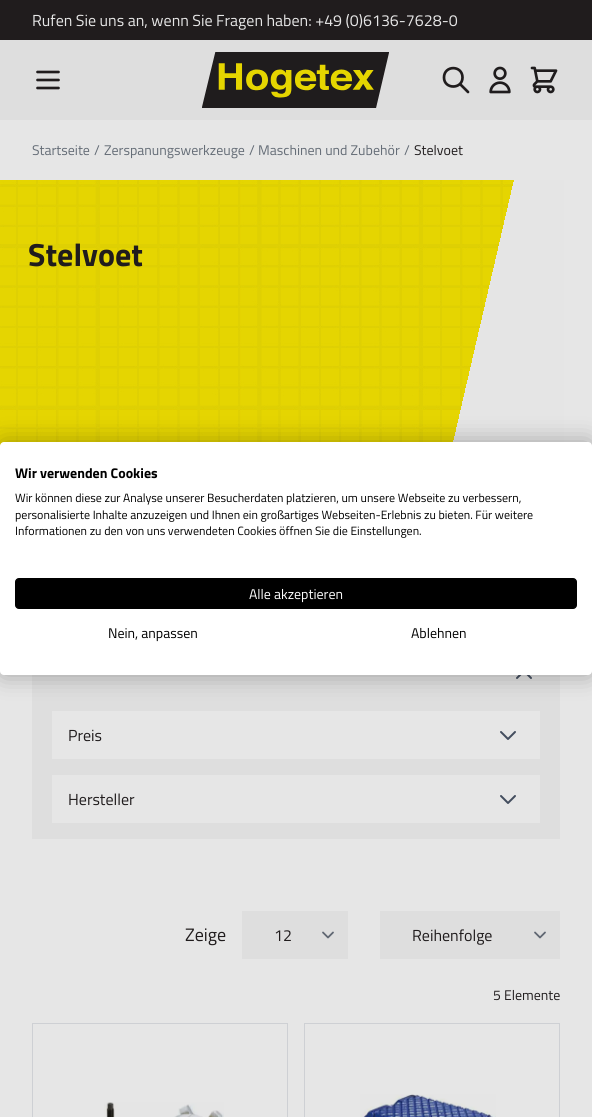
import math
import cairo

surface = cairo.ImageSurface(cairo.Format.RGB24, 592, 1117)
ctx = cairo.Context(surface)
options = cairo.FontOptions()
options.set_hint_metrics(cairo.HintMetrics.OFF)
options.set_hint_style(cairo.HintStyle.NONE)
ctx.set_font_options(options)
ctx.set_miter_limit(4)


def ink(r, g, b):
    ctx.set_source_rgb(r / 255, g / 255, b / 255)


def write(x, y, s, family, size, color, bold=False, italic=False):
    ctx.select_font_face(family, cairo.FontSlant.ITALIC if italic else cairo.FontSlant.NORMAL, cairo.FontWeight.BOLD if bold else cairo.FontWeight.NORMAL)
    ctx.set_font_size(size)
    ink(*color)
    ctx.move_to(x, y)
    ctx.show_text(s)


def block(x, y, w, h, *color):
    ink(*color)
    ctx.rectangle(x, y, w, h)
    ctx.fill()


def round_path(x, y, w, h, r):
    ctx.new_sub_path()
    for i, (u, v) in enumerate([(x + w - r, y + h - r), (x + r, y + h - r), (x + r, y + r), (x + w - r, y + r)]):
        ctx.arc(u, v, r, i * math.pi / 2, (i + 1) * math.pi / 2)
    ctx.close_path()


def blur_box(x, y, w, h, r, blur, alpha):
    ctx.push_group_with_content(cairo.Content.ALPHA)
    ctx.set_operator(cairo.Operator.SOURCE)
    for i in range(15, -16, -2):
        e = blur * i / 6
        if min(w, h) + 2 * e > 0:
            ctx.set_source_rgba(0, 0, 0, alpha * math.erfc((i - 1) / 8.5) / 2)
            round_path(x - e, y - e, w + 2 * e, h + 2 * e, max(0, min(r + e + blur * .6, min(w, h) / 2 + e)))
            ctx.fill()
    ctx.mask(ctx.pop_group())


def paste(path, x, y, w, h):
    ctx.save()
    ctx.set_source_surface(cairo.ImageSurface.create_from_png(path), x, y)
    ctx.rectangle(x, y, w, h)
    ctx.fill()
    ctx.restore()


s1 = dict(family="Titillium Web", size=16, color=(230, 230, 230))
s2 = dict(family="Titillium Web", size=14, color=(100, 108, 118))
s3 = dict(family="Titillium Web", size=14, color=(32, 28, 29))
s4 = dict(family="Titillium Web", size=32, color=(32, 28, 29), bold=True)
s5 = dict(family="Titillium Web", size=16, color=(32, 28, 29))
s6 = dict(family="Titillium Web", size=18, color=(32, 28, 29))
s7 = dict(family="Titillium Web", size=14, color=(0, 0, 0), bold=True)
s8 = dict(family="Titillium Web", size=12, color=(0, 0, 0))
s9 = dict(family="Titillium Web", size=14, color=(255, 255, 255))
s10 = dict(family="Titillium Web", size=14, color=(0, 0, 0))

ink(230, 230, 230)
ctx.paint()
block(0, 0, 592, 40, 32, 28, 29)
write(32, 26, "Rufen Sie uns an, wenn Sie Fragen haben: +49 (0)6136-7628-0", **s1)
block(0, 40, 592, 80, 222, 222, 222)
ctx.new_path()
ctx.move_to(37.5, 72)
ctx.line_to(58.5, 72)
ctx.move_to(37.5, 80)
ctx.line_to(58.5, 80)
ctx.move_to(37.5, 88)
ctx.line_to(58.5, 88)
ink(32, 28, 29)
ctx.set_line_width(2.7)
ctx.set_line_cap(cairo.LineCap.ROUND)
ctx.set_line_join(cairo.LineJoin.ROUND)
ctx.stroke()
paste("pic1.png", 202, 52, 187, 56)
ctx.new_path()
ctx.move_to(468, 92)
ctx.line_to(460, 84)
ctx.move_to(462.5, 77.5)
ctx.curve_to(462.5, 89.5, 444, 89.5, 444, 77.5)
ctx.curve_to(444, 65, 462.5, 65, 462.5, 77.5)
ctx.close_path()
ctx.stroke()
paste("pic2.png", 489, 66, 22, 28)
paste("pic3.png", 530, 66, 28, 28)
write(32, 155, "Startseite", **s2)
write(94, 155, "/", **s2)
write(104, 155, "Zerspanungswerkzeuge", **s2)
write(249, 155, "/", **s2)
write(258, 155, "Maschinen und Zubehör", **s2)
write(404, 155, "/", **s2)
write(414, 155, "Stelvoet", **s3)
paste("pic4.png", 0, 180, 564, 266)
write(28, 266, "Stelvoet", **s4)
block(32, 675, 528, 164, 222, 222, 222)
ctx.new_path()
ctx.move_to(517, 678)
ctx.line_to(524, 671)
ctx.line_to(531, 678)
ink(67, 77, 94)
ctx.set_line_width(2)
ctx.stroke()
block(52, 711, 488, 48, 230, 230, 230)
write(68, 741, "Preis", **s5)
ctx.new_path()
ctx.move_to(515, 732)
ctx.line_to(508, 739)
ctx.line_to(501, 732)
ink(67, 77, 94)
ctx.stroke()
block(52, 775, 488, 48, 230, 230, 230)
write(68, 805, "Hersteller", **s5)
ctx.new_path()
ctx.move_to(515, 796)
ctx.line_to(508, 803)
ctx.line_to(501, 796)
ink(67, 77, 94)
ctx.stroke()
write(185, 941, "Zeige", **s6)
block(242, 911, 106, 48, 222, 222, 222)
ctx.new_path()
ctx.move_to(323, 932.5)
ctx.line_to(328, 937.5)
ctx.line_to(333, 932.5)
ink(96, 103, 115)
ctx.set_line_width(1.8)
ctx.stroke()
write(274, 941, "12", **s5)
block(380, 911, 180, 48, 222, 222, 222)
ctx.new_path()
ctx.move_to(535, 932.5)
ctx.line_to(540, 937.5)
ctx.line_to(545, 932.5)
ink(96, 103, 115)
ctx.stroke()
write(412, 941, "Reihenfolge", **s5)
write(493, 1000, "5 Elemente", **s3)
ctx.rectangle(32.5, 1023.5, 255, 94)
ink(206, 208, 212)
ctx.set_line_width(1)
ctx.set_line_cap(cairo.LineCap.BUTT)
ctx.set_line_join(cairo.LineJoin.MITER)
ctx.stroke()
paste("pic5.png", 104, 1102, 120, 15)
ctx.rectangle(304.5, 1023.5, 255, 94)
ctx.stroke()
paste("pic6.png", 360, 1094, 136, 23)
ink(0, 0, 0)
blur_box(0, 442, 592, 233, 4, 12, 0.3)
ink(255, 255, 255)
round_path(0, 442, 592, 233, 4)
ctx.fill()
write(15, 478, "Wir verwenden Cookies", **s7)
write(15, 502, "Wir können diese zur Analyse unserer Besucherdaten platzieren, um unsere Webseite zu verbessern,", **s8)
write(15, 519, "personalisierte Inhalte anzuzeigen und Ihnen ein großartiges Webseiten-Erlebnis zu bieten. Für weitere", **s8)
write(15, 535, "Informationen zu den von uns verwendeten Cookies öffnen Sie die Einstellungen.", **s8)
round_path(15.5, 578.5, 561, 30, 3.5)
ctx.fill_preserve()
ctx.stroke()
write(249, 599, "Alle akzeptieren", **s9)
write(108, 638, "Nein, anpassen", **s10)
write(411, 638, "Ablehnen", **s10)
surface.write_to_png("screenshot.png")
